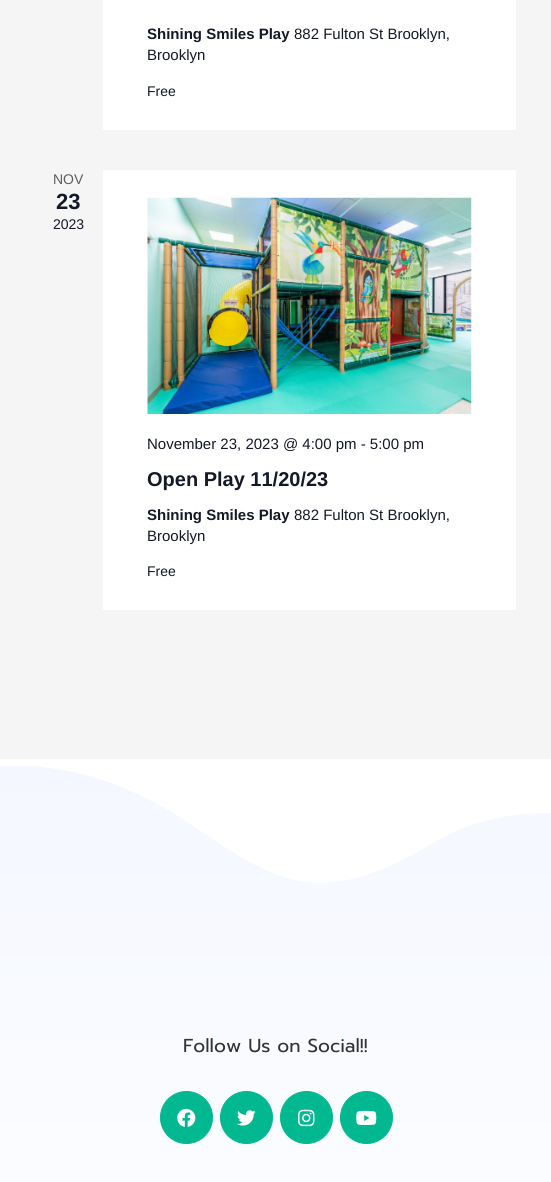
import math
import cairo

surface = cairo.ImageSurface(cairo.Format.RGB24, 551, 1182)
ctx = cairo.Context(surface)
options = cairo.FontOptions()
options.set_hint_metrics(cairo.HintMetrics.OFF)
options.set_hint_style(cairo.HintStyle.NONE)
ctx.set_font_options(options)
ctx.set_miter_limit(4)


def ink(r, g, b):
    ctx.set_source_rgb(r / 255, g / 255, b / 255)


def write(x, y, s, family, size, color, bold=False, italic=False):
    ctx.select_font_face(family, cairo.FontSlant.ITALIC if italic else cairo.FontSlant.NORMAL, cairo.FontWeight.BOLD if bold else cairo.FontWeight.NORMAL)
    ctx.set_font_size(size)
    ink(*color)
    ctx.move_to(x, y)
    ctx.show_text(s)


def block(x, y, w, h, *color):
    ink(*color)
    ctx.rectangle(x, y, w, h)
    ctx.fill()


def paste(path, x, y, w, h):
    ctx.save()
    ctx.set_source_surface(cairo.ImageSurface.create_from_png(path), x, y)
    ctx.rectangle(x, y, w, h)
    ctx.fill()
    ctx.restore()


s1 = dict(family="Liberation Sans", size=15, color=(20, 24, 39), bold=True)
s2 = dict(family="Liberation Sans", size=15, color=(20, 24, 39))
s3 = dict(family="Liberation Sans", size=14, color=(20, 24, 39))
s4 = dict(family="Liberation Sans", size=14, color=(93, 93, 93))
s5 = dict(family="Liberation Sans", size=22, color=(20, 24, 39), bold=True)
s6 = dict(family="Liberation Sans", size=20, color=(20, 24, 39), bold=True)
s7 = dict(family="Prompt", size=18.75, color=(51, 51, 51))

ink(245, 245, 245)
ctx.paint()
block(103, 0, 413, 130, 255, 255, 255)
write(147, 39, "Shining Smiles Play", **s1)
write(294, 39, "882 Fulton St Brooklyn,", **s2)
write(147, 60, "Brooklyn", **s2)
write(147, 96, "Free", **s3)
write(53, 184, "NOV", **s4)
write(56, 209, "23", **s5)
write(53, 229, "2023", **s3)
block(103, 170, 413, 440, 255, 255, 255)
paste("pic1.png", 147, 197, 325, 217)
write(147, 449, "November 23, 2023 @ 4:00 pm - 5:00 pm", **s2)
write(147, 486, "Open Play 11/20/23", **s6)
write(147, 520, "Shining Smiles Play", **s1)
write(294, 520, "882 Fulton St Brooklyn,", **s2)
write(147, 541, "Brooklyn", **s2)
write(147, 576, "Free", **s3)
gradient = cairo.LinearGradient(276, 760, 276, 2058)
gradient.add_color_stop_rgba(0, 0.957, 0.969, 1, 1)
gradient.add_color_stop_rgba(0.5, 1, 1, 1, 1)
ctx.set_source(gradient)
ctx.rectangle(0, 765, 551, 417)
ctx.fill()
ink(255, 255, 255)
ctx.new_path()
ctx.move_to(50, 768)
ctx.curve_to(96, 774, 139, 792, 178, 816)
ctx.curve_to(216, 840, 254, 872, 299, 881)
ctx.curve_to(340, 888, 379, 873, 414, 854)
ctx.curve_to(430, 845, 445, 835, 461, 829)
ctx.curve_to(493, 816, 529, 811, 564, 814)
ctx.curve_to(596, 818, 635, 832, 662, 852)
ctx.line_to(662, 759)
ctx.line_to(-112, 759)
ctx.line_to(-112, 802)
ctx.curve_to(-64, 773, -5, 760, 50, 768)
ctx.close_path()
ctx.fill()
write(183, 1052, "Follow Us on Social!!", **s7)
ink(2, 184, 144)
ctx.new_path()
ctx.arc(186.5, 1117.5, 26, 0, 2 * math.pi)
ctx.fill_preserve()
ctx.set_line_width(1)
ctx.stroke()
paste("pic2.png", 177, 1108, 19, 19)
ctx.arc(246.5, 1117.5, 26, 0, 2 * math.pi)
ctx.fill_preserve()
ctx.stroke()
paste("pic3.png", 237, 1110, 19, 16)
ctx.arc(306.5, 1117.5, 26, 0, 2 * math.pi)
ctx.fill_preserve()
ctx.stroke()
paste("pic4.png", 298, 1109, 17, 18)
ctx.arc(366.5, 1117.5, 26, 0, 2 * math.pi)
ctx.fill_preserve()
ctx.stroke()
paste("pic5.png", 356, 1110, 21, 15)
surface.write_to_png("screenshot.png")
